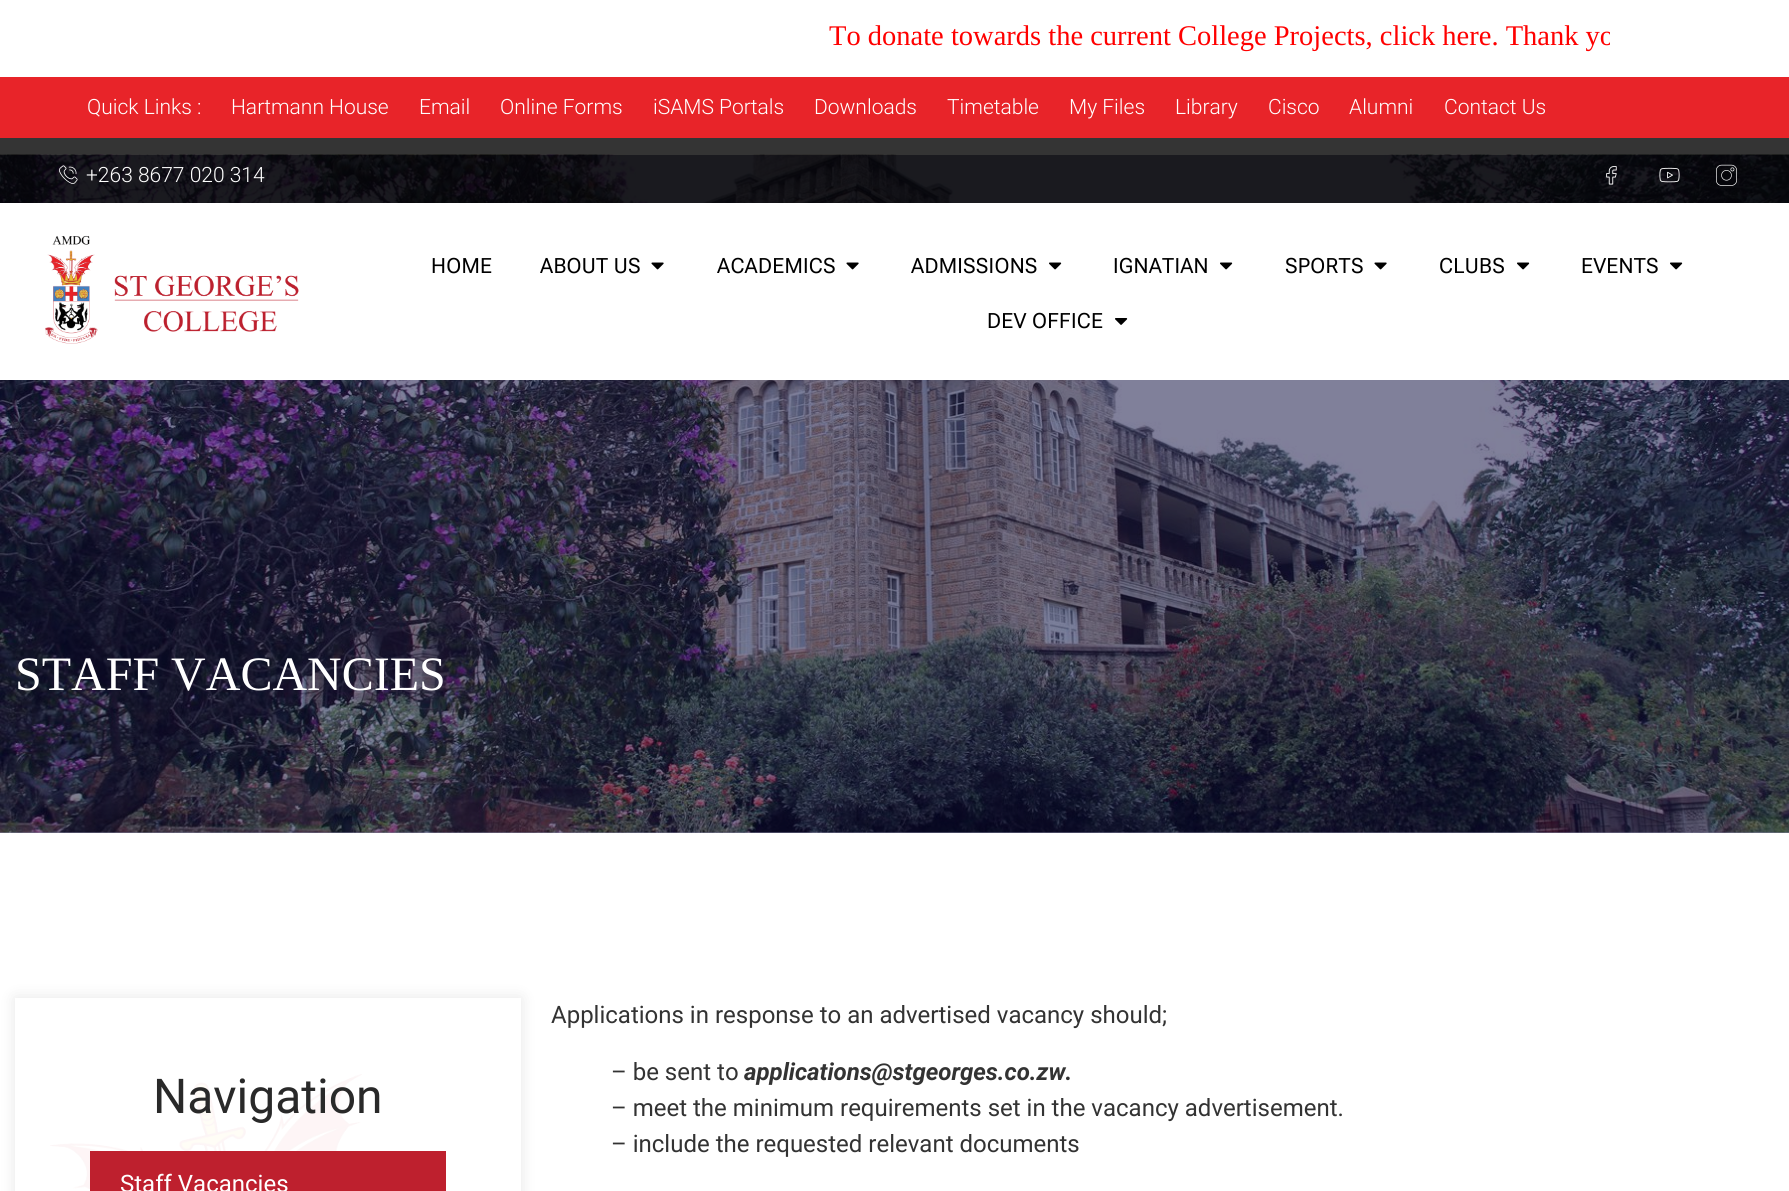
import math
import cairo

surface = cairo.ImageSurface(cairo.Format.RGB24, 1789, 1191)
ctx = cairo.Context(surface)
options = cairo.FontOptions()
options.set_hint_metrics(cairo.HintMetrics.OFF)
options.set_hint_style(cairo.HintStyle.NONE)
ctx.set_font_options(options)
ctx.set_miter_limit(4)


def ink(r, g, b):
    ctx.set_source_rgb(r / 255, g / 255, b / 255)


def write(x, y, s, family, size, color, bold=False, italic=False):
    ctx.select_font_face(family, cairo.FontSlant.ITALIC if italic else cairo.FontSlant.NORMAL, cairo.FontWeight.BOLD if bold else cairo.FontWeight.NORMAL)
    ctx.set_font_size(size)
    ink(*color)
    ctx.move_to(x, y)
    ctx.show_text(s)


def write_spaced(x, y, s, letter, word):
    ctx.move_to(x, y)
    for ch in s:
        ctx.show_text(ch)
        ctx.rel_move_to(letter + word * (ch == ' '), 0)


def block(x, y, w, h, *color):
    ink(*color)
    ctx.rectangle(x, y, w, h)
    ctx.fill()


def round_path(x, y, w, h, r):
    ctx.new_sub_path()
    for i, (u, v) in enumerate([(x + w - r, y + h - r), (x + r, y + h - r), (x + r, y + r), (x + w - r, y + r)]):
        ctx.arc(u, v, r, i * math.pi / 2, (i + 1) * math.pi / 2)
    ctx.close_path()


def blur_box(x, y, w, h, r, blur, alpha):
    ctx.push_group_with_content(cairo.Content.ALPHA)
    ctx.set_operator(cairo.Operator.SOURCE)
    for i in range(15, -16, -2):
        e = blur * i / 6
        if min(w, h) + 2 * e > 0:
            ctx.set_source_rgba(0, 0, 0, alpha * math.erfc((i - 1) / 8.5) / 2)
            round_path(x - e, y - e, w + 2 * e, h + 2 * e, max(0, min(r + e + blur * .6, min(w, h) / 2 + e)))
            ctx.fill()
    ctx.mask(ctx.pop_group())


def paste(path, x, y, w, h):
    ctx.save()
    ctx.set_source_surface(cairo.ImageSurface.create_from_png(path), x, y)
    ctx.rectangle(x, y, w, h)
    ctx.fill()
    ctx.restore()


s1 = dict(family="Liberation Serif", size=28.5, color=(255, 0, 0))
s2 = dict(family="Roboto Light", size=21, color=(255, 255, 255))
s3 = dict(family="Liberation Serif", size=48, color=(255, 255, 255))
s4 = dict(family="Roboto", size=48, color=(41, 41, 41))
s5 = dict(family="Roboto", size=24, color=(255, 255, 255))
s6 = dict(family="Roboto", size=24, color=(51, 51, 51))
s7 = dict(family="Roboto", size=24, color=(51, 51, 51), bold=True, italic=True)

ink(255, 255, 255)
ctx.paint()
block(0, 832, 1789, 1, 128, 128, 154)
ctx.save()
ctx.rectangle(15, 15, 1595, 65)
ctx.clip()
write(829, 45, "To donate towards the current College Projects, click here. Thank yo", **s1)
ctx.restore()
block(0, 77, 1789, 61, 232, 36, 41)
write(87, 114, "Quick Links :", **s2)
write(231, 114, "Hartmann House", **s2)
write(419, 114, "Email", **s2)
write(500, 114, "Online Forms", **s2)
write(653, 114, "iSAMS Portals", **s2)
write(814, 114, "Downloads", **s2)
write(947, 114, "Timetable", **s2)
write(1069, 114, "My Files", **s2)
write(1175, 114, "Library", **s2)
write(1268, 114, "Cisco", **s2)
write(1349, 114, "Alumni", **s2)
write(1444, 114, "Contact Us", **s2)
paste("pic9.png", 0, 154, 1789, 679)
ctx.set_source_rgba(0, 0, 0, 0.55)
ctx.rectangle(0, 138, 1789, 65)
ctx.fill()
ctx.rectangle(0, 138, 1789, 65)
ctx.fill()
paste("pic1.png", 59, 165, 19, 19)
write(86, 182, "+263 8677 020 314", **s2)
paste("pic2.png", 1606, 166, 11, 19)
paste("pic3.png", 1659, 167, 21, 16)
paste("pic4.png", 1716, 164, 21, 22)
block(0, 203, 1789, 177, 255, 255, 255)
paste("pic5.png", 45, 235, 254, 109)
ctx.select_font_face("Roboto Flex")
ink(0, 0, 0)
write_spaced(431, 273, "HOME", 0.25, 0)
write_spaced(540, 273, "ABOUT US", 0.25, 0)
paste("pic6.png", 651, 262, 13, 8)
write_spaced(717, 273, "ACADEMICS", 0.25, 0)
paste("pic6.png", 846, 262, 13, 8)
write_spaced(911, 273, "ADMISSIONS", 0.25, 0)
paste("pic7.png", 1049, 262, 13, 8)
write_spaced(1113, 273, "IGNATIAN", 0.25, 0)
paste("pic7.png", 1220, 262, 13, 8)
write_spaced(1285, 273, "SPORTS", 0.25, 0)
paste("pic6.png", 1374, 262, 13, 8)
write_spaced(1439, 273, "CLUBS", 0.25, 0)
paste("pic7.png", 1517, 262, 13, 8)
write_spaced(1581, 273, "EVENTS", 0.25, 0)
paste("pic7.png", 1670, 262, 13, 8)
write_spaced(987, 328, "DEV OFFICE", 0.25, 0)
paste("pic8.png", 1115, 318, 13, 7)
write(15, 690, "STAFF VACANCIES", **s3)
ink(0, 0, 0)
blur_box(15, 998, 506, 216, 0, 7.5, 0.1)
block(15, 998, 506, 193, 255, 255, 255)
paste("pic10.png", 50, 1074, 312, 115)
write(153, 1113, "Navigation", **s4)
block(90, 1151, 356, 40, 190, 32, 46)
write(120, 1192, "Staff Vacancies", **s5)
write(551, 1023, "Applications in response to an advertised vacancy should;", **s6)
write(611, 1080, "– be sent to", **s6)
write(744, 1080, "applications@stgeorges.co.zw.", **s7)
write(611, 1116, "– meet the minimum requirements set in the vacancy advertisement.", **s6)
write(611, 1152, "– include the requested relevant documents", **s6)
surface.write_to_png("screenshot.png")
